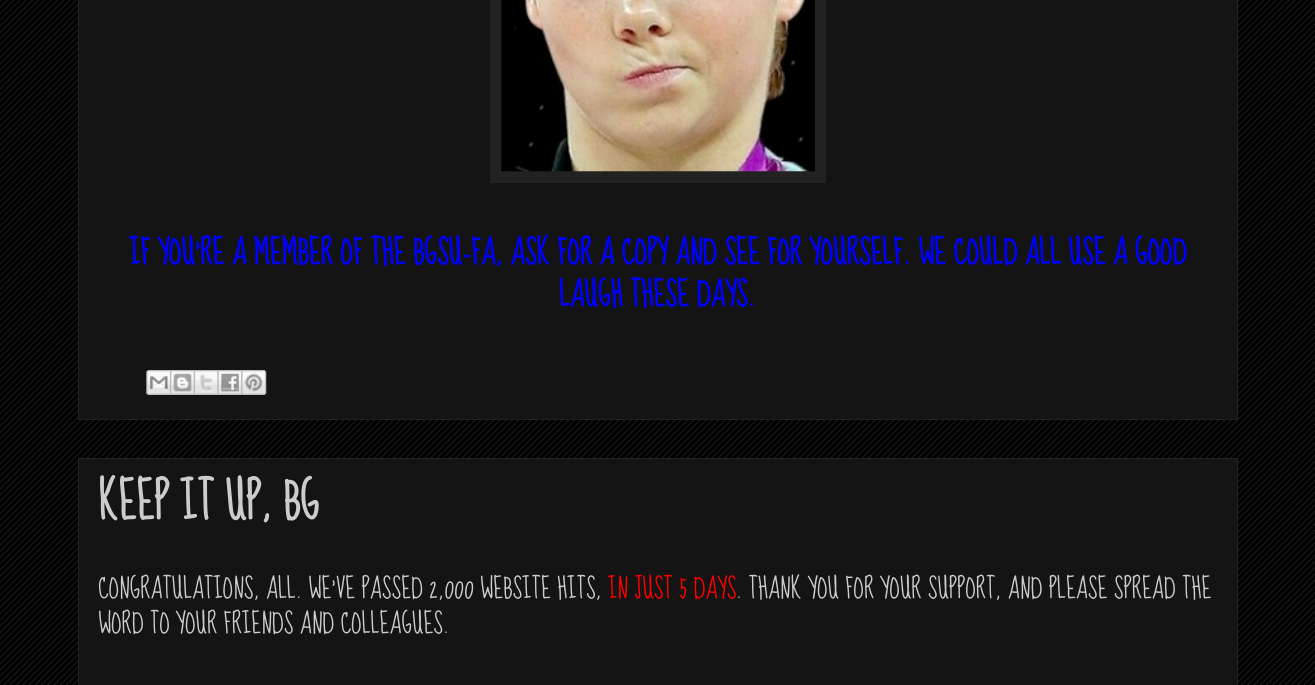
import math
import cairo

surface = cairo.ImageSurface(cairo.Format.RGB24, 1315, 685)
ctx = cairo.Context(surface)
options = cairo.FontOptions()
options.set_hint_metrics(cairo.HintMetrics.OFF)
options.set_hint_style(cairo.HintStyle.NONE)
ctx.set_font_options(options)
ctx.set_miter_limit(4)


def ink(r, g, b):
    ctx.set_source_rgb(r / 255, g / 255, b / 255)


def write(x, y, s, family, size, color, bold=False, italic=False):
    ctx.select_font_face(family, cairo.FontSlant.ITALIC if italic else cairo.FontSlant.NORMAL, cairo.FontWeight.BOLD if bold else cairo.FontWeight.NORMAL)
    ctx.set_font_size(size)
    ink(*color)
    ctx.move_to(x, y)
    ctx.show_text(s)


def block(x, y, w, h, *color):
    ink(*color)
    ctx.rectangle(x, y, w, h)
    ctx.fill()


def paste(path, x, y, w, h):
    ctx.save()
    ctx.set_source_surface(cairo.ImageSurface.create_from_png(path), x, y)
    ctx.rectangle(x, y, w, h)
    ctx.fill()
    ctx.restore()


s1 = dict(family="Sue Ellen Francisco", size=30, color=(0, 0, 255), bold=True)
s2 = dict(family="Sue Ellen Francisco", size=45, color=(204, 204, 204), bold=True)
s3 = dict(family="Sue Ellen Francisco", size=25, color=(204, 204, 204))
s4 = dict(family="Sue Ellen Francisco", size=25, color=(255, 0, 0))

ink(0, 0, 0)
ctx.paint()
paste("pic1.png", 0, 0, 1315, 685)
ink(20, 20, 20)
ctx.rectangle(78.5, -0.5, 1159, 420)
ctx.fill_preserve()
ink(34, 34, 34)
ctx.set_line_width(1)
ctx.stroke()
block(490, 0, 336, 183, 34, 34, 34)
paste("pic2.png", 501, 0, 314, 172)
write(129, 264, "IF YOU'RE A MEMBER OF THE BGSU-FA, ASK FOR A COPY AND SEE FOR YOURSELF. WE COULD ALL USE A GOOD", **s1)
write(559, 306, "LAUGH THESE DAYS.", **s1)
paste("pic3.png", 146, 370, 24, 25)
paste("pic4.png", 170, 370, 24, 25)
paste("pic5.png", 193, 370, 25, 25)
paste("pic6.png", 217, 370, 25, 25)
paste("pic7.png", 241, 370, 26, 25)
ink(20, 20, 20)
ctx.rectangle(78.5, 458.5, 1159, 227)
ctx.fill_preserve()
ink(34, 34, 34)
ctx.stroke()
write(98, 519, "KEEP IT UP, BG", **s2)
write(98, 598, "CONGRATULATIONS, ALL. WE'VE PASSED 2,000 WEBSITE HITS,", **s3)
write(608, 598, "IN JUST 5 DAYS", **s4)
write(736, 598, ". THANK YOU FOR YOUR SUPPORT, AND PLEASE SPREAD THE", **s3)
write(98, 633, "WORD TO YOUR FRIENDS AND COLLEAGUES.", **s3)
surface.write_to_png("screenshot.png")
